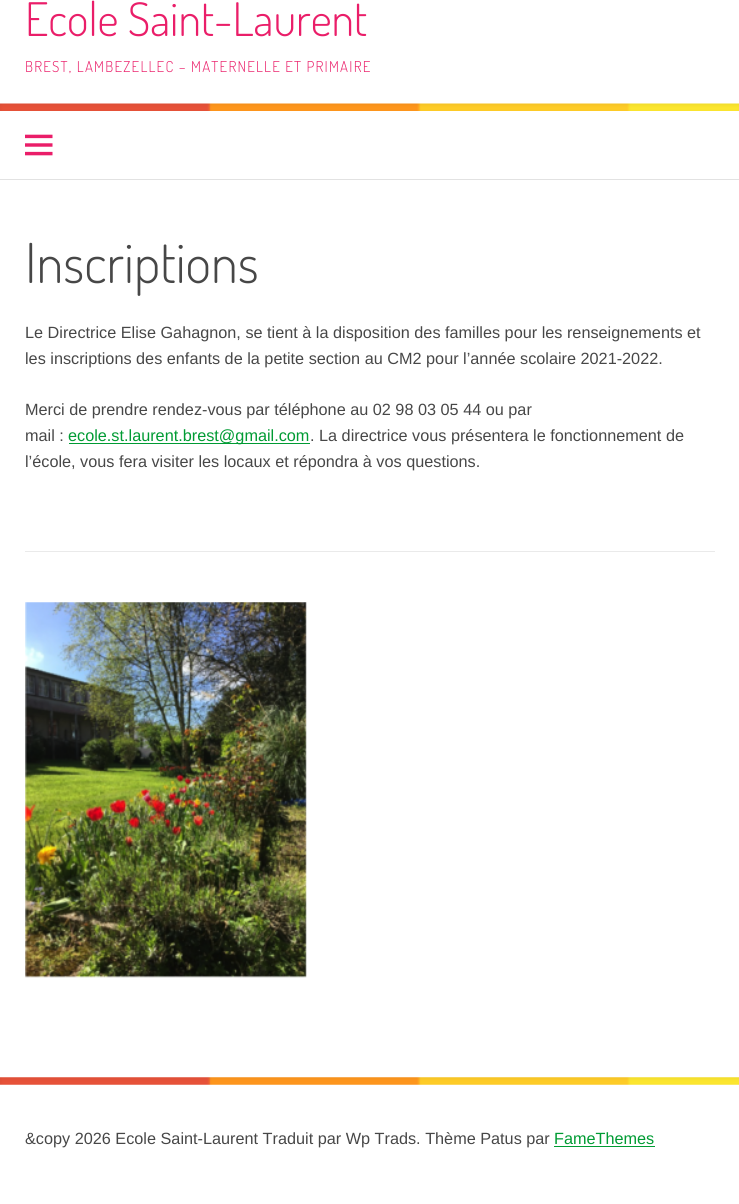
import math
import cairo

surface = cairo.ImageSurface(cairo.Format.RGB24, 739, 1204)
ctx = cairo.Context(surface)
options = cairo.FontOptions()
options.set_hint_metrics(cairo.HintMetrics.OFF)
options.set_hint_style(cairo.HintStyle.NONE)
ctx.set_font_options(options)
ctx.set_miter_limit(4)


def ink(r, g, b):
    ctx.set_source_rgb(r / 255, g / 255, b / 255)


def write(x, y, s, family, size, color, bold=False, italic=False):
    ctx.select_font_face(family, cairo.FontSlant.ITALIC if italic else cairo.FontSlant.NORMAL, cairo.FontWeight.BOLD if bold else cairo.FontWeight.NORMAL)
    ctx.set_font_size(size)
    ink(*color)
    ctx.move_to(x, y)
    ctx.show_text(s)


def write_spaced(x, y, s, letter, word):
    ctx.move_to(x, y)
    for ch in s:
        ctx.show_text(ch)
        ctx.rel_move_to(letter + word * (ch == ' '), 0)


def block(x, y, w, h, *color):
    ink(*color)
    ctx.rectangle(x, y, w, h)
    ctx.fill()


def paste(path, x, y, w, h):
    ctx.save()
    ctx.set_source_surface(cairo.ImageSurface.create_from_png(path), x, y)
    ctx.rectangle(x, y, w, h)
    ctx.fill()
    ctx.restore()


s1 = dict(family="Dosis Light", size=46.25, color=(234, 30, 105))
s2 = dict(family="Dosis Light", size=55, color=(71, 71, 71))
s3 = dict(family="Liberation Sans", size=16.25, color=(71, 71, 71))
s4 = dict(family="Liberation Sans", size=16.25, color=(0, 155, 51))

ink(255, 255, 255)
ctx.paint()
write(25, 36, "Ecole Saint-Laurent", **s1)
ctx.set_font_size(15)
write_spaced(25, 72, "BREST, LAMBEZELLEC – MATERNELLE ET PRIMAIRE", 1.25, 0)
paste("pic1.png", 0, 103, 739, 8)
block(0, 179, 739, 1, 226, 226, 226)
paste("pic2.png", 25, 134, 28, 22)
block(25, 551, 690, 1, 234, 234, 234)
write(25, 283, "Inscriptions", **s2)
write(25, 338, "Le Directrice Elise Gahagnon, se tient à la disposition des familles pour les renseignements et", **s3)
write(25, 364, "les inscriptions des enfants de la petite section au CM2 pour l’année scolaire 2021-2022.", **s3)
write(25, 415, "Merci de prendre rendez-vous par téléphone au 02 98 03 05 44 ou par", **s3)
write(25, 441, "mail :", **s3)
block(69, 443, 241, 1, 0, 155, 51)
write(68, 441, "ecole.st.laurent.brest@gmail.com", **s4)
write(310, 441, ". La directrice vous présentera le fonctionnement de", **s3)
write(25, 467, "l’école, vous fera visiter les locaux et répondra à vos questions.", **s3)
paste("pic3.png", 25, 602, 282, 376)
paste("pic4.png", 0, 1077, 739, 8)
write(25, 1144, "&copy 2026 Ecole Saint-Laurent Traduit par Wp Trads. Thème Patus par", **s3)
write(554, 1144, "FameThemes", **s4)
block(554, 1146, 101, 1, 0, 155, 51)
surface.write_to_png("screenshot.png")
